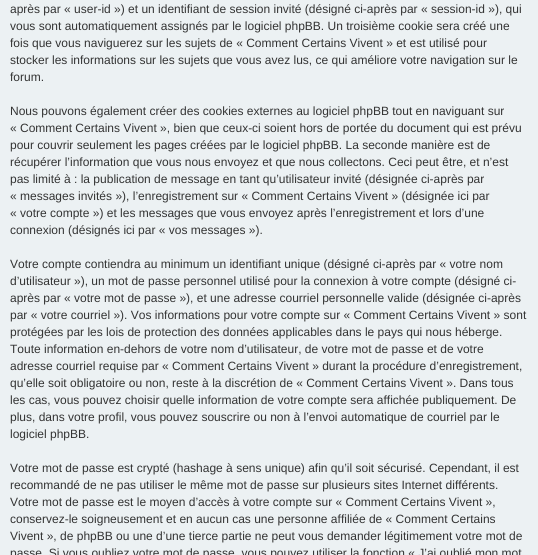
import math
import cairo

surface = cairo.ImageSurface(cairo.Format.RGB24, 538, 555)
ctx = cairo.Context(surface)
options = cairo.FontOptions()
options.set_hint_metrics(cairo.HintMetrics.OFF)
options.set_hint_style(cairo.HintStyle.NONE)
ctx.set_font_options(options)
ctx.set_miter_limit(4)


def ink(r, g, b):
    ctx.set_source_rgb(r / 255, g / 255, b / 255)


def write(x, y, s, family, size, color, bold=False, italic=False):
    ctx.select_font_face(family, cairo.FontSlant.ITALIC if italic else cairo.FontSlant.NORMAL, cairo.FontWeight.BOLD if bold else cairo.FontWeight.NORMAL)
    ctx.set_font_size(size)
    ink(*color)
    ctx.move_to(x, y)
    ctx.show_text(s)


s1 = dict(family="Liberation Sans", size=12, color=(51, 51, 51))

ink(236, 241, 243)
ctx.paint()
write(10, 13, "après par « user-id ») et un identifiant de session invité (désigné ci-après par « session-id »), qui", **s1)
write(10, 30, "vous sont automatiquement assignés par le logiciel phpBB. Un troisième cookie sera créé une", **s1)
write(10, 47, "fois que vous naviguerez sur les sujets de « Comment Certains Vivent » et est utilisé pour", **s1)
write(10, 64, "stocker les informations sur les sujets que vous avez lus, ce qui améliore votre navigation sur le", **s1)
write(10, 81, "forum.", **s1)
write(10, 115, "Nous pouvons également créer des cookies externes au logiciel phpBB tout en naviguant sur", **s1)
write(10, 132, "« Comment Certains Vivent », bien que ceux-ci soient hors de portée du document qui est prévu", **s1)
write(10, 149, "pour couvrir seulement les pages créées par le logiciel phpBB. La seconde manière est de", **s1)
write(10, 166, "récupérer l’information que vous nous envoyez et que nous collectons. Ceci peut être, et n’est", **s1)
write(10, 183, "pas limité à : la publication de message en tant qu’utilisateur invité (désignée ci-après par", **s1)
write(10, 200, "« messages invités »), l’enregistrement sur « Comment Certains Vivent » (désignée ici par", **s1)
write(10, 217, "« votre compte ») et les messages que vous envoyez après l’enregistrement et lors d’une", **s1)
write(10, 234, "connexion (désignés ici par « vos messages »).", **s1)
write(10, 268, "Votre compte contiendra au minimum un identifiant unique (désigné ci-après par « votre nom", **s1)
write(10, 285, "d’utilisateur »), un mot de passe personnel utilisé pour la connexion à votre compte (désigné ci-", **s1)
write(10, 302, "après par « votre mot de passe »), et une adresse courriel personnelle valide (désignée ci-après", **s1)
write(10, 319, "par « votre courriel »). Vos informations pour votre compte sur « Comment Certains Vivent » sont", **s1)
write(10, 336, "protégées par les lois de protection des données applicables dans le pays qui nous héberge.", **s1)
write(10, 353, "Toute information en-dehors de votre nom d’utilisateur, de votre mot de passe et de votre", **s1)
write(10, 370, "adresse courriel requise par « Comment Certains Vivent » durant la procédure d’enregistrement,", **s1)
write(10, 387, "qu’elle soit obligatoire ou non, reste à la discrétion de « Comment Certains Vivent ». Dans tous", **s1)
write(10, 404, "les cas, vous pouvez choisir quelle information de votre compte sera affichée publiquement. De", **s1)
write(10, 421, "plus, dans votre profil, vous pouvez souscrire ou non à l’envoi automatique de courriel par le", **s1)
write(10, 438, "logiciel phpBB.", **s1)
write(10, 472, "Votre mot de passe est crypté (hashage à sens unique) afin qu’il soit sécurisé. Cependant, il est", **s1)
write(10, 489, "recommandé de ne pas utiliser le même mot de passe sur plusieurs sites Internet différents.", **s1)
write(10, 506, "Votre mot de passe est le moyen d’accès à votre compte sur « Comment Certains Vivent »,", **s1)
write(10, 523, "conservez-le soigneusement et en aucun cas une personne affiliée de « Comment Certains", **s1)
write(10, 540, "Vivent », de phpBB ou une d’une tierce partie ne peut vous demander légitimement votre mot de", **s1)
write(10, 557, "passe. Si vous oubliez votre mot de passe, vous pouvez utiliser la fonction « J’ai oublié mon mot", **s1)
surface.write_to_png("screenshot.png")
